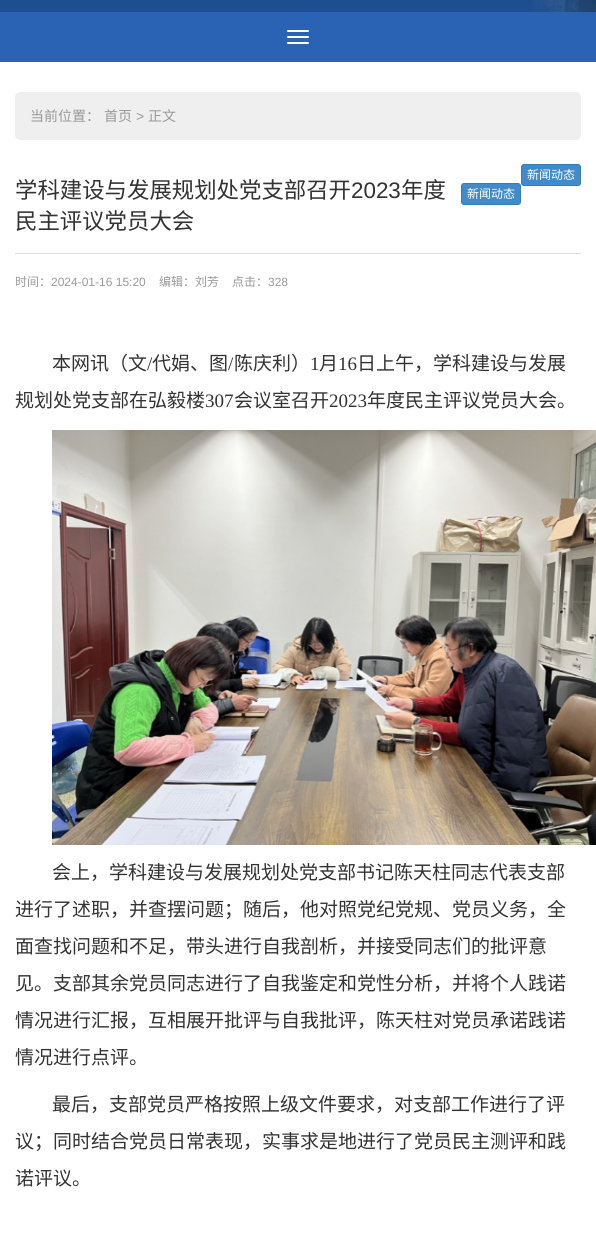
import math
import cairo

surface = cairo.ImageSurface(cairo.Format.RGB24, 596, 1259)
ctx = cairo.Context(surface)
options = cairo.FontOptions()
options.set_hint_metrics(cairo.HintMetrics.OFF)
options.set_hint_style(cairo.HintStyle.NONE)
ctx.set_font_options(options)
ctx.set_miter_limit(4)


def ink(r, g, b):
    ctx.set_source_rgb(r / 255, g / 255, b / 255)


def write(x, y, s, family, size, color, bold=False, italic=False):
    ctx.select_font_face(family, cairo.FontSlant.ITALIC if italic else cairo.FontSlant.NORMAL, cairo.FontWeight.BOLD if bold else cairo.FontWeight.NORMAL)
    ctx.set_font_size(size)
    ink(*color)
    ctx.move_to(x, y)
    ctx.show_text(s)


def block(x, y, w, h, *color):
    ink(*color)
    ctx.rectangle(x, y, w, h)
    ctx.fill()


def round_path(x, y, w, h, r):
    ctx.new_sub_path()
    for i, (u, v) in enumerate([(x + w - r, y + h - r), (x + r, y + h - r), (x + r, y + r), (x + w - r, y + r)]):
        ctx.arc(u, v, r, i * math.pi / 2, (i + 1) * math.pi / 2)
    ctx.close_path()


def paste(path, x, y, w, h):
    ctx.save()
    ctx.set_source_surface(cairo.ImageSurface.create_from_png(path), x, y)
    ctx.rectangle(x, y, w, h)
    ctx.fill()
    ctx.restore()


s1 = dict(family="Noto Sans CJK SC", size=14, color=(153, 153, 153))
s2 = dict(family="Liberation Sans", size=14, color=(153, 153, 153))
s3 = dict(family="Noto Sans CJK SC", size=12, color=(255, 255, 255))
s4 = dict(family="Noto Sans CJK SC", size=22.4, color=(51, 51, 51))
s5 = dict(family="Liberation Sans", size=22.4, color=(51, 51, 51))
s6 = dict(family="Noto Sans CJK SC", size=12, color=(153, 153, 153))
s7 = dict(family="Liberation Sans", size=12, color=(153, 153, 153))
s8 = dict(family="Noto Sans CJK SC", size=19, color=(51, 51, 51))
s9 = dict(family="Liberation Serif", size=19, color=(51, 51, 51))

ink(255, 255, 255)
ctx.paint()
block(0, 0, 532, 12, 29, 78, 145)
paste("pic1.png", 532, 0, 64, 12)
block(0, 12, 596, 50, 42, 99, 179)
ink(255, 255, 255)
round_path(287, 30, 22, 2, 1)
ctx.fill()
round_path(287, 36, 22, 2, 1)
ctx.fill()
round_path(287, 42, 22, 2, 1)
ctx.fill()
ink(239, 239, 239)
round_path(15, 92, 566, 48, 5)
ctx.fill()
write(30, 121, "当前位置：", **s1)
write(104, 121, "首页", **s1)
write(136, 121, ">", **s2)
write(148, 121, "正文", **s1)
ink(66, 139, 202)
round_path(521.5, 164.5, 59, 21, 2.5)
ctx.fill_preserve()
ink(53, 126, 189)
ctx.set_line_width(1)
ctx.stroke()
write(527, 179, "新闻动态", **s3)
block(15, 253, 566, 1, 221, 221, 221)
write(15, 198, "学科建设与发展规划处党支部召开", **s4)
write(351, 198, "2023", **s5)
write(401, 198, "年度", **s4)
write(15, 229, "民主评议党员大会", **s4)
write(15, 286, "时间：", **s6)
write(51, 286, "2024-01-16 15:20", **s7)
write(159, 286, "编辑：刘芳", **s6)
write(232, 286, "点击：", **s6)
write(268, 286, "328", **s7)
write(52, 370, "本网讯（文", **s8)
write(147, 370, "/", **s9)
write(152, 370, "代娟、图", **s8)
write(228, 370, "/", **s9)
write(234, 370, "陈庆利）", **s8)
write(310, 370, "1", **s9)
write(319, 370, "月", **s8)
write(338, 370, "16", **s9)
write(357, 370, "日上午，学科建设与发展", **s8)
write(15, 407, "规划处党支部在弘毅楼", **s8)
write(205, 407, "307", **s9)
write(234, 407, "会议室召开", **s8)
write(329, 407, "2023", **s9)
write(367, 407, "年度民主评议党员大会。", **s8)
paste("pic2.png", 52, 430, 544, 415)
write(52, 879, "会上，学科建设与发展规划处党支部书记陈天柱同志代表支部", **s8)
write(15, 916, "进行了述职，并查摆问题；随后，他对照党纪党规、党员义务，全", **s8)
write(15, 953, "面查找问题和不足，带头进行自我剖析，并接受同志们的批评意", **s8)
write(15, 990, "见。支部其余党员同志进行了自我鉴定和党性分析，并将个人践诺", **s8)
write(15, 1027, "情况进行汇报，互相展开批评与自我批评，陈天柱对党员承诺践诺", **s8)
write(15, 1064, "情况进行点评。", **s8)
write(52, 1111, "最后，支部党员严格按照上级文件要求，对支部工作进行了评", **s8)
write(15, 1148, "议；同时结合党员日常表现，实事求是地进行了党员民主测评和践", **s8)
write(15, 1185, "诺评议。", **s8)
ink(66, 139, 202)
round_path(461.5, 183.5, 59, 21, 2.5)
ctx.fill_preserve()
ink(53, 126, 189)
ctx.stroke()
write(467, 198, "新闻动态", **s3)
surface.write_to_png("screenshot.png")
